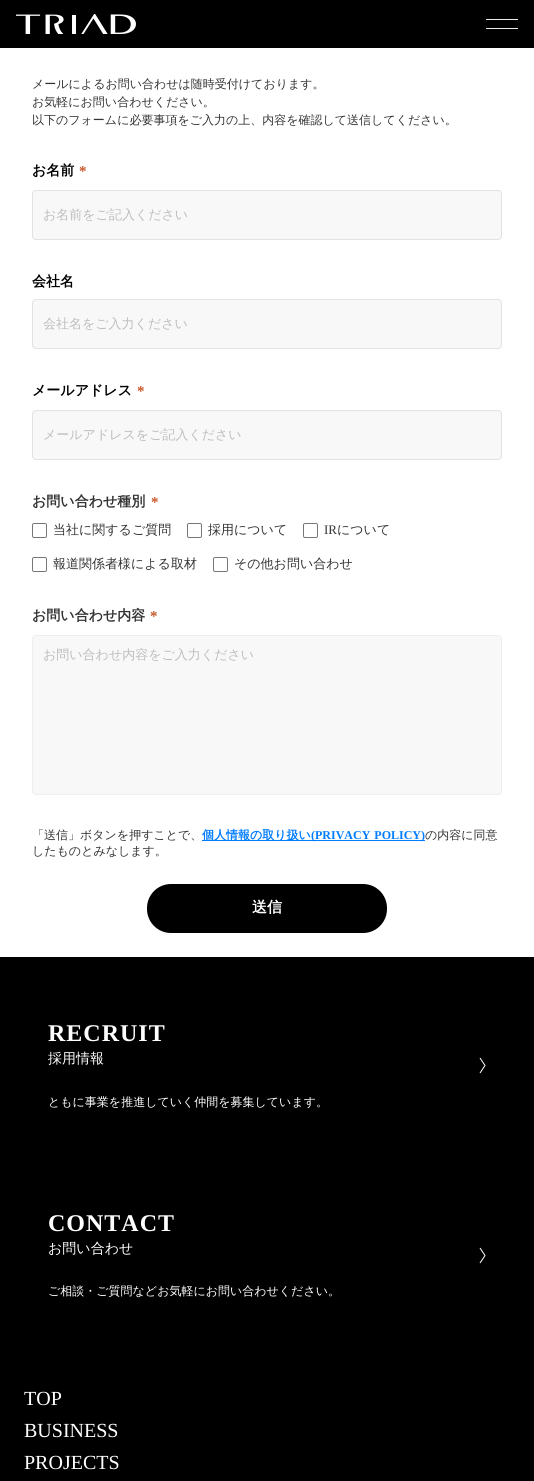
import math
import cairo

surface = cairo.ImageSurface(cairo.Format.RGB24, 534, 1481)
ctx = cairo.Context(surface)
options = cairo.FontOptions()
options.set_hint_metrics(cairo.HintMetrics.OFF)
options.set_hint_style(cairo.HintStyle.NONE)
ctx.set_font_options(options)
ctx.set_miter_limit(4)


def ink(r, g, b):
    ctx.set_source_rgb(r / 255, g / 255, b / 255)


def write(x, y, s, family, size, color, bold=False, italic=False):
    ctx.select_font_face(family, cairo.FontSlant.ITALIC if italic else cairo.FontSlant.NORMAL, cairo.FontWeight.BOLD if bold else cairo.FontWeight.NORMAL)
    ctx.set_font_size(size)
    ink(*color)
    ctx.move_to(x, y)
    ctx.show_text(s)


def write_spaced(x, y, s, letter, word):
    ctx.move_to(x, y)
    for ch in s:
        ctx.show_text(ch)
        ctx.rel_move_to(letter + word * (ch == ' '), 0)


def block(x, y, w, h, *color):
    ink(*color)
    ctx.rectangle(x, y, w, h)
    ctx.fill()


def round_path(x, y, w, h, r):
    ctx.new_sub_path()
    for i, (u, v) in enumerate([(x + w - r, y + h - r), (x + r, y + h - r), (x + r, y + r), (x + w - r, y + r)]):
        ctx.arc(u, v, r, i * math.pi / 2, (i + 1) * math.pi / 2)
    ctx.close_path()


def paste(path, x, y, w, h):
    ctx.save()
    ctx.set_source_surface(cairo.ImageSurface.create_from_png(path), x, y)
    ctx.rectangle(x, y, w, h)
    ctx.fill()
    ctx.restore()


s1 = dict(family="WenQuanYi Zen Hei Medium", size=12, color=(51, 51, 51))
s2 = dict(family="WenQuanYi Zen Hei", size=14, color=(0, 0, 0), bold=True)
s3 = dict(family="Liberation Serif", size=15, color=(200, 85, 39), bold=True)
s4 = dict(family="WenQuanYi Zen Hei Medium", size=13, color=(189, 189, 189))
s5 = dict(family="WenQuanYi Zen Hei", size=14, color=(51, 51, 51), bold=True)
s6 = dict(family="WenQuanYi Zen Hei Medium", size=13, color=(51, 51, 51))
s7 = dict(family="Liberation Serif", size=13, color=(51, 51, 51))
s8 = dict(family="WenQuanYi Zen Hei", size=12, color=(0, 124, 255), bold=True)
s9 = dict(family="WenQuanYi Zen Hei", size=15, color=(255, 255, 255), bold=True)
s10 = dict(family="WenQuanYi Zen Hei Medium", size=14, color=(255, 255, 255))
s11 = dict(family="WenQuanYi Zen Hei Medium", size=12, color=(255, 255, 255))
s12 = dict(family="Liberation Serif", size=20, color=(255, 255, 255))

ink(255, 255, 255)
ctx.paint()
block(0, 0, 534, 48, 0, 0, 0)
paste("pic1.png", 16, 14, 120, 20)
block(486, 19, 32, 1, 238, 238, 238)
block(486, 28, 32, 1, 238, 238, 238)
write(32, 88, "メールによるお問い合わせは随時受付けております。", **s1)
write(32, 106, "お気軽にお問い合わせください。", **s1)
write(32, 124, "以下のフォームに必要事項をご入力の上、内容を確認して送信してください。", **s1)
write(32, 175, "お名前", **s2)
write(79, 176, "*", **s3)
ink(248, 248, 248)
round_path(32.5, 190.5, 469, 49, 3.5)
ctx.fill_preserve()
ink(226, 226, 226)
ctx.set_line_width(1)
ctx.stroke()
write(43, 219, "お名前をご記入ください", **s4)
write(32, 286, "会社名", **s2)
ink(248, 248, 248)
round_path(32.5, 299.5, 469, 49, 3.5)
ctx.fill_preserve()
ink(226, 226, 226)
ctx.stroke()
write(43, 328, "会社名をご入力ください", **s4)
write(32, 395, "メールアドレス", **s2)
write(137, 396, "*", **s3)
ink(248, 248, 248)
round_path(32.5, 410.5, 469, 49, 3.5)
ctx.fill_preserve()
ink(226, 226, 226)
ctx.stroke()
write(43, 439, "メールアドレスをご記入ください", **s4)
write(32, 506, "お問い合わせ種別", **s5)
write(151, 507, "*", **s3)
round_path(32.5, 523.5, 14, 14, 1.5)
ink(118, 118, 118)
ctx.stroke()
write(53, 534, "当社に関するご質問", **s6)
round_path(187.5, 523.5, 14, 14, 1.5)
ink(118, 118, 118)
ctx.stroke()
write(208, 534, "採用について", **s6)
round_path(303.5, 523.5, 14, 14, 1.5)
ink(118, 118, 118)
ctx.stroke()
write(324, 534, "IR", **s7)
write(337, 534, "について", **s6)
round_path(32.5, 557.5, 14, 14, 1.5)
ink(118, 118, 118)
ctx.stroke()
write(53, 568, "報道関係者様による取材", **s6)
round_path(213.5, 557.5, 14, 14, 1.5)
ink(118, 118, 118)
ctx.stroke()
write(234, 568, "その他お問い合わせ", **s6)
write(32, 620, "お問い合わせ内容", **s5)
write(150, 621, "*", **s3)
ink(248, 248, 248)
round_path(32.5, 635.5, 469, 159, 3.5)
ctx.fill_preserve()
ink(238, 238, 238)
ctx.stroke()
write(43, 659, "お問い合わせ内容をご入力ください", **s4)
write(32, 839, "「送信」ボタンを押すことで、", **s1)
block(202, 840, 223, 1, 0, 124, 255)
write(202, 839, "個人情報の取り扱い", **s8)
ctx.select_font_face("Liberation Serif", cairo.FontSlant.NORMAL, cairo.FontWeight.BOLD)
write_spaced(311, 839, "(PRIVACY POLICY)", 0, 1)
write(425, 839, "の内容に同意", **s1)
write(32, 855, "したものとみなします。", **s1)
ink(0, 0, 0)
round_path(147, 884, 240, 49, 24)
ctx.fill()
write(252, 912, "送信", **s9)
block(0, 957, 534, 524, 0, 0, 0)
ctx.select_font_face("Liberation Serif", cairo.FontSlant.NORMAL, cairo.FontWeight.BOLD)
ctx.set_font_size(24)
ink(255, 255, 255)
write_spaced(48, 1041, "RECRUIT", 1, 0)
write(48, 1063, "採用情報", **s10)
write(48, 1106, "ともに事業を推進していく仲間を募集しています。", **s11)
ctx.new_path()
ctx.move_to(480, 1058)
ctx.line_to(485, 1065.5)
ctx.line_to(480, 1073)
ctx.stroke()
ctx.select_font_face("Liberation Serif", cairo.FontSlant.NORMAL, cairo.FontWeight.BOLD)
ctx.set_font_size(24)
write_spaced(48, 1231, "CONTACT", 1, 0)
write(48, 1253, "お問い合わせ", **s10)
write(48, 1295, "ご相談・ご質問などお気軽にお問い合わせください。", **s11)
ctx.new_path()
ctx.move_to(480, 1248)
ctx.line_to(485, 1255.5)
ctx.line_to(480, 1263)
ctx.stroke()
write(24, 1405, "TOP", **s12)
write(24, 1437, "BUSINESS", **s12)
write(24, 1469, "PROJECTS", **s12)
surface.write_to_png("screenshot.png")
